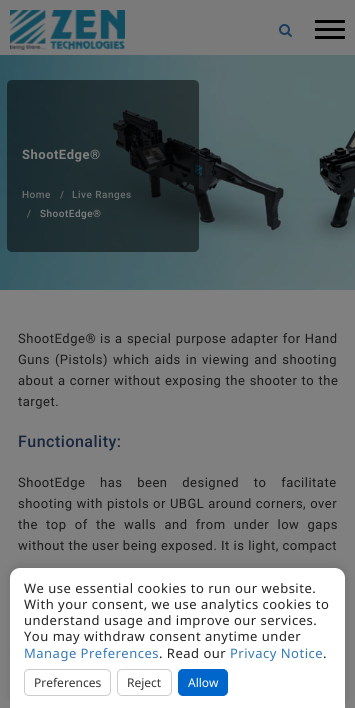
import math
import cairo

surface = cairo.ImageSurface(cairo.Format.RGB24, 355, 708)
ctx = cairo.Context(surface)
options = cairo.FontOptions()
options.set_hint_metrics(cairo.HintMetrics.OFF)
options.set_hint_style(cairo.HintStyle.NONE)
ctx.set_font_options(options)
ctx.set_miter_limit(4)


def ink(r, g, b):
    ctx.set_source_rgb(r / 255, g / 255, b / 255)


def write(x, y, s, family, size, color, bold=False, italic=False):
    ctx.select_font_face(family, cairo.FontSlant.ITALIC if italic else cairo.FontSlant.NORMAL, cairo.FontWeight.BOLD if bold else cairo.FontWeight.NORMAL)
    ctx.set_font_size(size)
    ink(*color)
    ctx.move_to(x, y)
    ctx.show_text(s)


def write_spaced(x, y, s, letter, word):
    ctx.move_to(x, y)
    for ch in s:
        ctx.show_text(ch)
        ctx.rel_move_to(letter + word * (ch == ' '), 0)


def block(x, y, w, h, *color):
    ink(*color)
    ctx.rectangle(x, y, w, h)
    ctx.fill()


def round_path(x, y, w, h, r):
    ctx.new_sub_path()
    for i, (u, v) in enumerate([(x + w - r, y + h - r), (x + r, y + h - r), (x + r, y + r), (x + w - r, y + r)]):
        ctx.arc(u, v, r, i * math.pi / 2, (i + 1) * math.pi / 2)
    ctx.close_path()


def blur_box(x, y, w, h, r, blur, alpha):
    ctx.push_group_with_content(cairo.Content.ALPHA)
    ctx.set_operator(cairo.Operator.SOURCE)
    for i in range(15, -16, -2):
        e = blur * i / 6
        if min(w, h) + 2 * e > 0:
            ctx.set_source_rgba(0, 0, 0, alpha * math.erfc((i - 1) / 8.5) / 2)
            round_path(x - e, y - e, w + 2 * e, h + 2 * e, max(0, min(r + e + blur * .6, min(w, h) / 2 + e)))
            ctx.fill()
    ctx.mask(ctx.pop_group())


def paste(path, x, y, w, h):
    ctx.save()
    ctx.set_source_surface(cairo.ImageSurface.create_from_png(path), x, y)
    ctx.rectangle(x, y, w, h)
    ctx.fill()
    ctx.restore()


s1 = dict(family="Noto Sans", size=12, color=(51, 51, 51))
s2 = dict(family="Noto Sans", size=12, color=(255, 255, 255))

ink(128, 128, 128)
ctx.paint()
block(0, 0, 355, 55, 122, 122, 122)
paste("pic1.png", 10, 10, 115, 40)
paste("pic2.png", 279, 24, 13, 13)
block(315, 20, 30, 3, 0, 0, 0)
block(315, 28, 30, 3, 0, 0, 0)
block(315, 36, 30, 3, 0, 0, 0)
paste("pic3.png", 0, 55, 355, 235)
ctx.set_source_rgba(0, 0, 0, 0.5)
round_path(7, 80, 192, 172, 5)
ctx.fill()
ctx.select_font_face("Roboto", cairo.FontSlant.NORMAL, cairo.FontWeight.BOLD)
ctx.set_font_size(13)
ink(128, 128, 128)
write_spaced(22, 159, "ShootEdge®", 0.5, 0)
ctx.select_font_face("Roboto Medium")
ctx.set_font_size(10)
ink(108, 111, 112)
write_spaced(22, 198, "Home", 0.5, 0)
ink(102, 102, 102)
write_spaced(60, 198, "/", 0.5, 0)
ink(108, 111, 112)
write_spaced(72, 198, "Live Ranges", 0.5, 0)
ink(102, 102, 102)
write_spaced(27, 217, "/", 0.5, 0)
ink(128, 128, 128)
write_spaced(40, 217, "ShootEdge®", 0.5, 0)
ctx.select_font_face("Roboto")
ctx.set_font_size(13)
ink(26, 26, 26)
write_spaced(18, 343, "ShootEdge®", 0.5, 0)
write_spaced(100, 343, "is a special purpose adapter for Hand", 0.5, 0.5)
write_spaced(18, 364, "Guns (Pistols) which aids in viewing and shooting", 0.5, 1.25)
write_spaced(18, 385, "about a corner without exposing the shooter to the", 0.5, 0.5)
write_spaced(18, 406, "target.", 0.5, 0)
ctx.select_font_face("Roboto Medium")
ctx.set_font_size(16)
ink(26, 38, 62)
write_spaced(18, 447, "Functionality:", 0.5, 0)
ctx.select_font_face("Roboto")
ctx.set_font_size(13)
ink(26, 26, 26)
write_spaced(18, 487, "ShootEdge has been designed to facilitate", 0.5, 11)
write_spaced(18, 508, "shooting with pistols or UBGL around corners, over", 0.5, 0.25)
write_spaced(18, 529, "the top of the walls and from under low gaps", 0.5, 4.5)
write_spaced(18, 550, "without the user being exposed. It is light, compact", 0.5, 0)
ink(0, 0, 0)
blur_box(10, 566, 335, 140, 10, 5, 0.12)
ink(255, 255, 255)
ctx.new_path()
ctx.move_to(20, 568)
ctx.line_to(335, 568)
ctx.curve_to(340.5, 568, 345, 572.5, 345, 578)
ctx.line_to(345, 708)
ctx.line_to(10, 708)
ctx.line_to(10, 578)
ctx.curve_to(10, 572.5, 14.5, 568, 20, 568)
ctx.close_path()
ctx.fill()
ctx.select_font_face("Noto Sans")
ink(34, 34, 34)
write_spaced(24, 593, "We use essential cookies to run our website.", 0.5, 0)
write_spaced(24, 609, "With your consent, we use analytics cookies to", 0.5, 0)
write_spaced(24, 625, "understand usage and improve our services.", 0.5, 0)
write_spaced(24, 641, "You may withdraw consent anytime under", 0.5, 0)
ink(51, 122, 183)
write_spaced(24, 658, "Manage Preferences", 0.5, 0)
ink(34, 34, 34)
write_spaced(159, 658, ". Read our", 0.5, 0)
ink(51, 122, 183)
write_spaced(230, 658, "Privacy Notice", 0.5, 0)
ink(34, 34, 34)
write_spaced(323, 658, ".", 0.5, 0)
round_path(24.5, 669.5, 86, 26, 4.5)
ink(204, 204, 204)
ctx.set_line_width(1)
ctx.stroke()
write(34, 687, "Preferences", **s1)
round_path(117.5, 669.5, 54, 26, 4.5)
ink(204, 204, 204)
ctx.stroke()
write(127, 687, "Reject", **s1)
ink(0, 102, 204)
round_path(178.5, 669.5, 49, 26, 4.5)
ctx.fill_preserve()
ctx.stroke()
write(188, 687, "Allow", **s2)
surface.write_to_png("screenshot.png")
